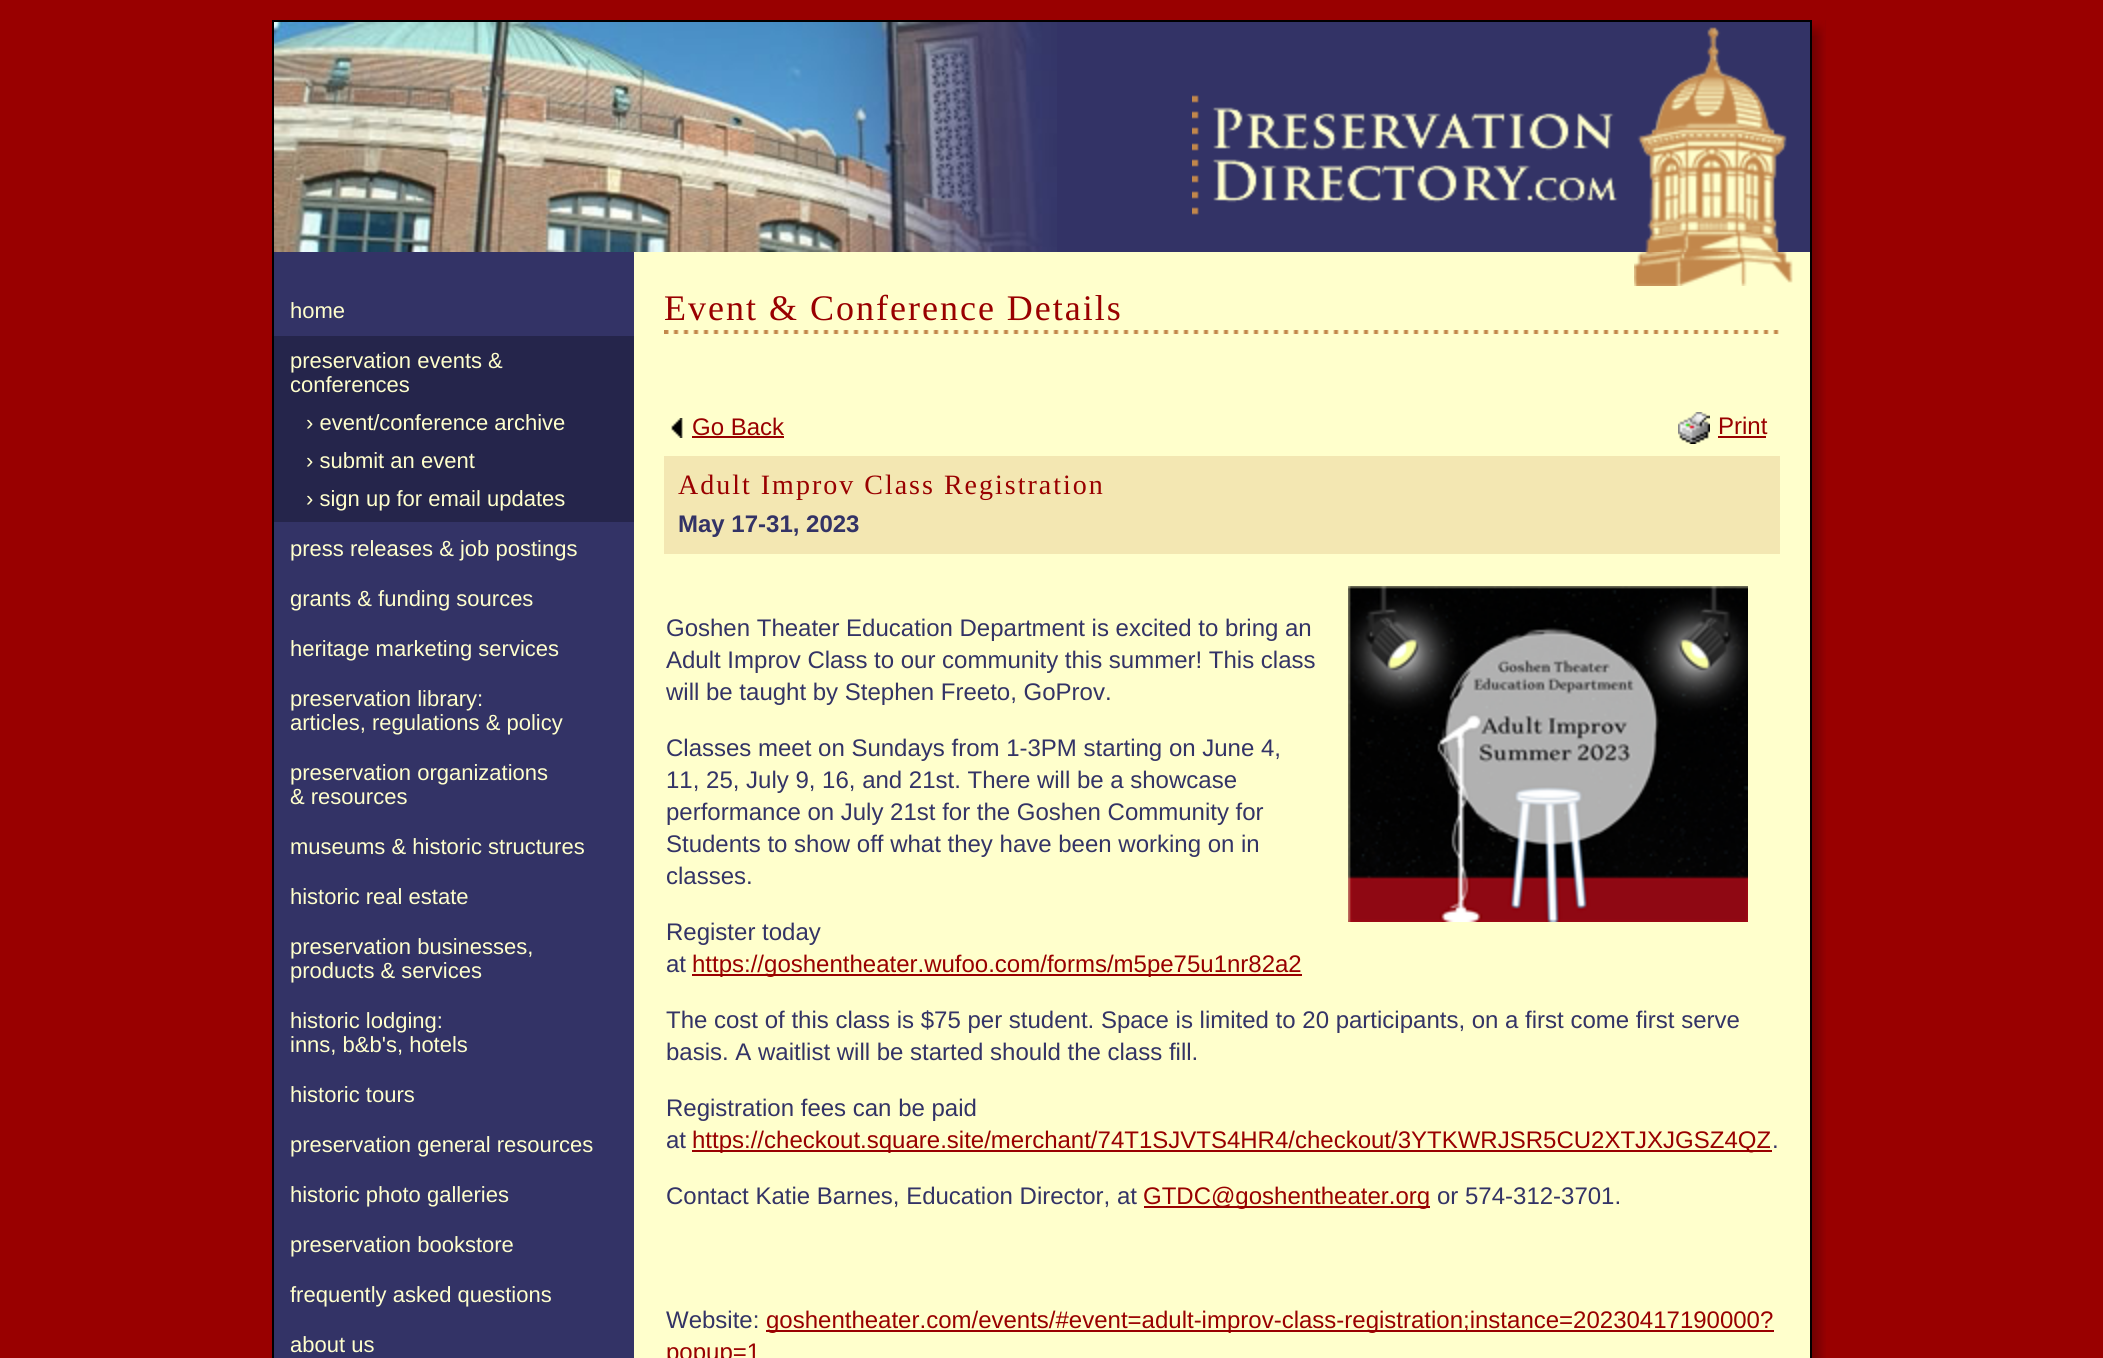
import math
import cairo

surface = cairo.ImageSurface(cairo.Format.RGB24, 2103, 1358)
ctx = cairo.Context(surface)
options = cairo.FontOptions()
options.set_hint_metrics(cairo.HintMetrics.OFF)
options.set_hint_style(cairo.HintStyle.NONE)
ctx.set_font_options(options)
ctx.set_miter_limit(4)


def ink(r, g, b):
    ctx.set_source_rgb(r / 255, g / 255, b / 255)


def write(x, y, s, family, size, color, bold=False, italic=False):
    ctx.select_font_face(family, cairo.FontSlant.ITALIC if italic else cairo.FontSlant.NORMAL, cairo.FontWeight.BOLD if bold else cairo.FontWeight.NORMAL)
    ctx.set_font_size(size)
    ink(*color)
    ctx.move_to(x, y)
    ctx.show_text(s)


def write_spaced(x, y, s, letter, word):
    ctx.move_to(x, y)
    for ch in s:
        ctx.show_text(ch)
        ctx.rel_move_to(letter + word * (ch == ' '), 0)


def block(x, y, w, h, *color):
    ink(*color)
    ctx.rectangle(x, y, w, h)
    ctx.fill()


def paste(path, x, y, w, h):
    ctx.save()
    ctx.set_source_surface(cairo.ImageSurface.create_from_png(path), x, y)
    ctx.rectangle(x, y, w, h)
    ctx.fill()
    ctx.restore()


s1 = dict(family="Liberation Sans", size=22, color=(255, 255, 204))
s2 = dict(family="Liberation Sans", size=24, color=(153, 0, 0))
s3 = dict(family="Liberation Sans", size=24, color=(51, 51, 102), bold=True)
s4 = dict(family="Liberation Sans", size=24, color=(51, 51, 102))

ink(153, 0, 0)
ctx.paint()
block(272, 20, 1540, 2, 0, 0, 0)
paste("pic1.png", 1812, 20, 14, 1338)
paste("pic2.png", 1812, 20, 13, 16)
block(272, 22, 2, 1336, 0, 0, 0)
block(1057, 22, 753, 230, 51, 51, 102)
paste("pic3.png", 274, 22, 783, 230)
paste("pic4.png", 1192, 27, 595, 225)
block(1810, 22, 2, 1336, 0, 0, 0)
block(274, 252, 360, 1106, 51, 51, 102)
write(290, 318, "home", **s1)
block(274, 336, 360, 186, 37, 37, 75)
write(290, 368, "preservation events &", **s1)
write(290, 392, "conferences", **s1)
write(306, 430, "› event/conference archive", **s1)
write(306, 468, "› submit an event", **s1)
write(306, 506, "› sign up for email updates", **s1)
write(290, 556, "press releases & job postings", **s1)
write(290, 606, "grants & funding sources", **s1)
write(290, 656, "heritage marketing services", **s1)
write(290, 706, "preservation library:", **s1)
write(290, 730, "articles, regulations & policy", **s1)
write(290, 780, "preservation organizations", **s1)
write(290, 804, "& resources", **s1)
write(290, 854, "museums & historic structures", **s1)
write(290, 904, "historic real estate", **s1)
write(290, 954, "preservation businesses,", **s1)
write(290, 978, "products & services", **s1)
write(290, 1028, "historic lodging:", **s1)
write(290, 1052, "inns, b&b's, hotels", **s1)
write(290, 1102, "historic tours", **s1)
write(290, 1152, "preservation general resources", **s1)
write(290, 1202, "historic photo galleries", **s1)
write(290, 1252, "preservation bookstore", **s1)
write(290, 1302, "frequently asked questions", **s1)
write(290, 1352, "about us", **s1)
block(634, 252, 1176, 1106, 255, 255, 204)
paste("pic5.png", 1634, 252, 159, 34)
ctx.select_font_face("Liberation Serif")
ctx.set_font_size(36)
ink(153, 0, 0)
write_spaced(664, 320, "Event & Conference Details", 2, 0)
paste("pic6.png", 667, 330, 1112, 4)
paste("pic7.png", 664, 330, 5, 4)
paste("pic8.png", 671, 418, 12, 20)
write(692, 435, "Go Back", **s2)
block(692, 436, 92, 2, 153, 0, 0)
paste("pic9.png", 1678, 412, 32, 32)
write(1718, 434, "Print", **s2)
block(1718, 436, 48, 2, 153, 0, 0)
block(664, 456, 1116, 98, 243, 231, 178)
ctx.select_font_face("Liberation Serif")
ctx.set_font_size(28)
ink(153, 0, 0)
write_spaced(678, 494, "Adult Improv Class Registration", 2, 0)
write(678, 532, "May 17-31, 2023", **s3)
paste("pic10.png", 1348, 586, 400, 336)
write(666, 636, "Goshen Theater Education Department is excited to bring an", **s4)
write(666, 668, "Adult Improv Class to our community this summer! This class", **s4)
write(666, 700, "will be taught by Stephen Freeto, GoProv.", **s4)
write(666, 756, "Classes meet on Sundays from 1-3PM starting on June 4,", **s4)
write(666, 788, "11, 25, July 9, 16, and 21st. There will be a showcase", **s4)
write(666, 820, "performance on July 21st for the Goshen Community for", **s4)
write(666, 852, "Students to show off what they have been working on in", **s4)
write(666, 884, "classes.", **s4)
write(666, 940, "Register today", **s4)
write(666, 972, "at", **s4)
block(692, 974, 610, 2, 153, 0, 0)
write(692, 972, "https://goshentheater.wufoo.com/forms/m5pe75u1nr82a2", **s2)
write(666, 1028, "The cost of this class is $75 per student. Space is limited to 20 participants, on a first come first serve", **s4)
write(666, 1060, "basis. A waitlist will be started should the class fill.", **s4)
write(666, 1116, "Registration fees can be paid", **s4)
write(666, 1148, "at", **s4)
block(692, 1150, 1080, 2, 153, 0, 0)
write(692, 1148, "https://checkout.square.site/merchant/74T1SJVTS4HR4/checkout/3YTKWRJSR5CU2XTJXJGSZ4QZ", **s2)
write(1772, 1148, ".", **s4)
write(666, 1204, "Contact Katie Barnes, Education Director, at", **s4)
block(1144, 1206, 286, 2, 153, 0, 0)
write(1143, 1204, "GTDC@goshentheater.org", **s2)
write(1437, 1204, "or 574-312-3701.", **s4)
write(666, 1328, "Website:", **s4)
block(766, 1330, 1008, 2, 153, 0, 0)
write(766, 1328, "goshentheater.com/events/#event=adult-improv-class-registration;instance=20230417190000?", **s2)
write(666, 1360, "popup=1", **s2)
surface.write_to_png("screenshot.png")
